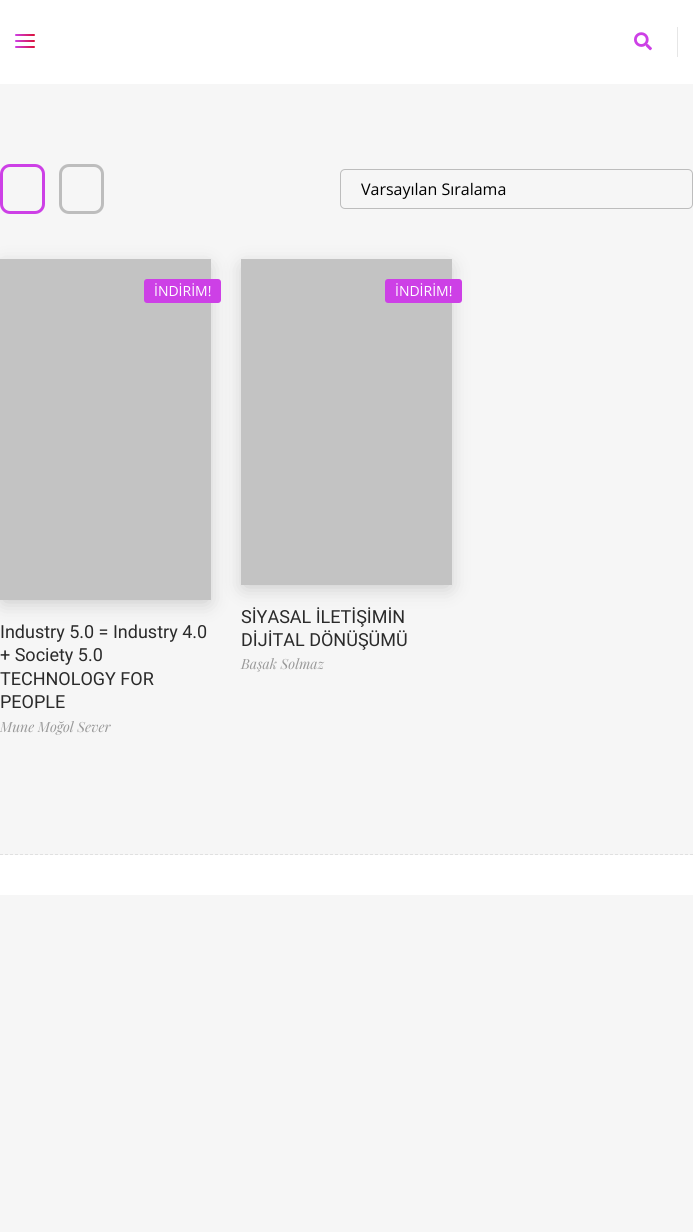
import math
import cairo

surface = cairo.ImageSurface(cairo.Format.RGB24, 693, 1232)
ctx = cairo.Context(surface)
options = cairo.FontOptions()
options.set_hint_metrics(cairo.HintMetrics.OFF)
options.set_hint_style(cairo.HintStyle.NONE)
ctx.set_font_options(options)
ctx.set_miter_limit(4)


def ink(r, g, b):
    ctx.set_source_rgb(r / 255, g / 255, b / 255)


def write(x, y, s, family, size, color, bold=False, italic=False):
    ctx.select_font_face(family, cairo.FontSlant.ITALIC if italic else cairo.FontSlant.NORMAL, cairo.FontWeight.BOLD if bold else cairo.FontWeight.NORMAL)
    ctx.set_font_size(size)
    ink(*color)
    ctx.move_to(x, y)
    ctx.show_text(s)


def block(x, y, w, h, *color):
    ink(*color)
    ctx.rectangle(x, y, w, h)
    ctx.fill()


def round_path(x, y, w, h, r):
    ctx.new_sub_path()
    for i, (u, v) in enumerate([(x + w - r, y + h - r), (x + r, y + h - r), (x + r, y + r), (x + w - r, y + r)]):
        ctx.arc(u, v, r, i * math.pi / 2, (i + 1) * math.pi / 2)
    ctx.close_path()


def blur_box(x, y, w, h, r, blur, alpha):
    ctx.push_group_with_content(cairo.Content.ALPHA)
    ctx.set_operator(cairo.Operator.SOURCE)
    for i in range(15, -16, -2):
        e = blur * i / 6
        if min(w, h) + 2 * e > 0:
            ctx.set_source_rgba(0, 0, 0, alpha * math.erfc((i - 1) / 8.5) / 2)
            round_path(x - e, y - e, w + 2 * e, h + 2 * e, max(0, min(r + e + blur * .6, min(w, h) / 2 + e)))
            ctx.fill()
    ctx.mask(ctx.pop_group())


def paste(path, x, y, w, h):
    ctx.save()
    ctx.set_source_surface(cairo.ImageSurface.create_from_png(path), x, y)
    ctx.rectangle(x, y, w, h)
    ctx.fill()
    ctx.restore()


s1 = dict(family="Open Sans", size=16, color=(0, 0, 0))
s2 = dict(family="Open Sans", size=14, color=(255, 255, 255))
s3 = dict(family="Roboto", size=18, color=(43, 43, 43))
s4 = dict(family="Playfair Display", size=14, color=(153, 153, 153), italic=True)

ink(246, 246, 246)
ctx.paint()
block(0, 0, 693, 84, 255, 255, 255)
gradient = cairo.LinearGradient(35, 41, 15, 41)
gradient.add_color_stop_rgba(0, 0.859, 0.063, 0.216, 1)
gradient.add_color_stop_rgba(1, 0.804, 0.251, 0.902, 1)
ctx.set_source(gradient)
round_path(15, 40, 20, 2, 1)
ctx.fill()
gradient = cairo.LinearGradient(35, 35, 15, 35)
gradient.add_color_stop_rgba(0, 0.859, 0.063, 0.216, 1)
gradient.add_color_stop_rgba(1, 0.804, 0.251, 0.902, 1)
ctx.set_source(gradient)
round_path(15, 34, 20, 2, 1)
ctx.fill()
gradient = cairo.LinearGradient(35, 47, 15, 47)
gradient.add_color_stop_rgba(0, 0.859, 0.063, 0.216, 1)
gradient.add_color_stop_rgba(1, 0.804, 0.251, 0.902, 1)
ctx.set_source(gradient)
round_path(15, 46, 20, 2, 1)
ctx.fill()
paste("pic1.png", 634, 32, 18, 19)
block(677, 27, 1, 30, 230, 230, 230)
round_path(1.5, 165.5, 42, 47, 8.5)
ink(205, 64, 230)
ctx.set_line_width(3)
ctx.stroke()
round_path(60.5, 165.5, 42, 47, 8.5)
ink(189, 189, 189)
ctx.stroke()
round_path(340.5, 169.5, 352, 39, 4.5)
ctx.set_line_width(1)
ctx.stroke()
write(361, 195, "Varsayılan Sıralama", **s1)
ink(0, 0, 0)
blur_box(3, 267, 205, 335, 0, 10, 0.2)
block(0, 259, 211, 341, 195, 195, 195)
ink(0, 0, 0)
blur_box(244, 267, 205, 320, 0, 10, 0.2)
ink(205, 64, 230)
round_path(144, 279, 77, 24, 3)
ctx.fill()
write(154, 296, "İNDİRİM!", **s2)
write(0, 638, "Industry 5.0 = Industry 4.0", **s3)
write(0, 661, "+ Society 5.0", **s3)
write(0, 685, "TECHNOLOGY FOR", **s3)
write(0, 708, "PEOPLE", **s3)
write(0, 732, "Mune Moğol Sever", **s4)
block(241, 259, 211, 326, 195, 195, 195)
ink(205, 64, 230)
round_path(385, 279, 77, 24, 3)
ctx.fill()
write(395, 296, "İNDİRİM!", **s2)
write(241, 623, "SİYASAL İLETİŞİMİN", **s3)
write(241, 646, "DİJİTAL DÖNÜŞÜMÜ", **s3)
write(241, 669, "Başak Solmaz", **s4)
ctx.new_path()
ctx.move_to(0, 854.5)
ctx.line_to(693, 854.5)
ink(224, 224, 224)
ctx.set_dash([3, 2])
ctx.stroke()
block(0, 855, 693, 40, 255, 255, 255)
surface.write_to_png("screenshot.png")
